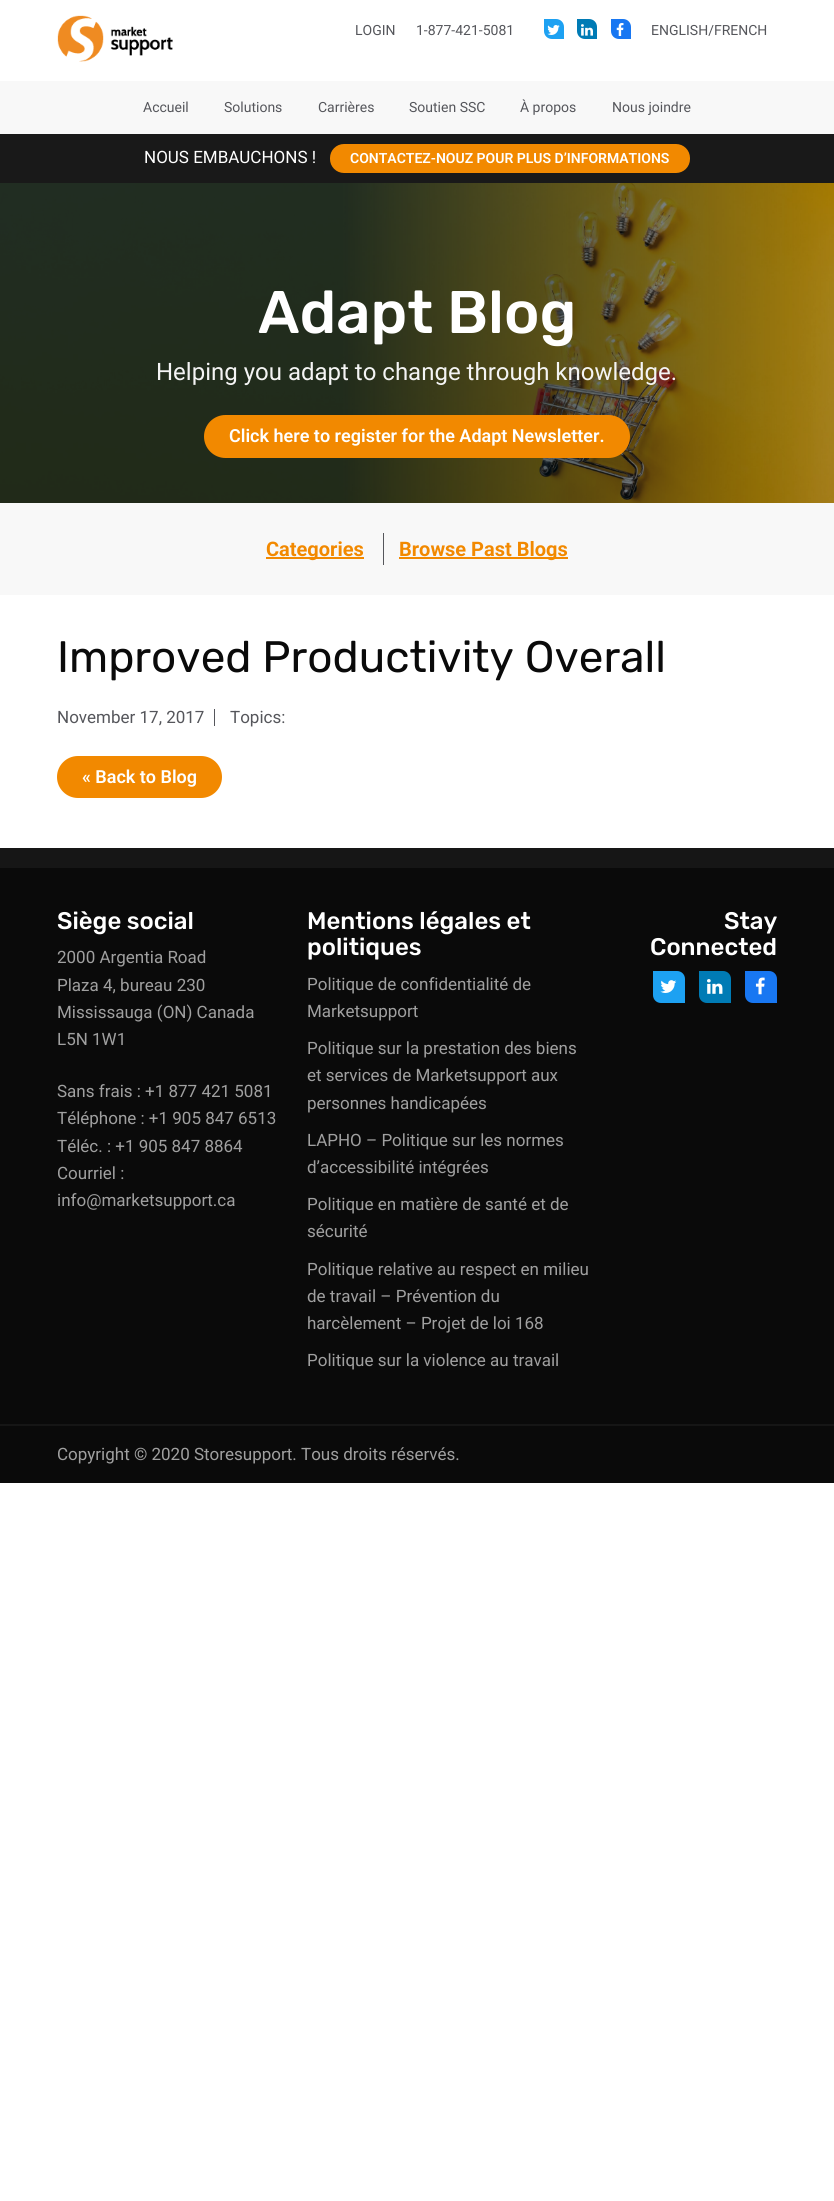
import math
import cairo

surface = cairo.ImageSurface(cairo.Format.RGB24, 834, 2201)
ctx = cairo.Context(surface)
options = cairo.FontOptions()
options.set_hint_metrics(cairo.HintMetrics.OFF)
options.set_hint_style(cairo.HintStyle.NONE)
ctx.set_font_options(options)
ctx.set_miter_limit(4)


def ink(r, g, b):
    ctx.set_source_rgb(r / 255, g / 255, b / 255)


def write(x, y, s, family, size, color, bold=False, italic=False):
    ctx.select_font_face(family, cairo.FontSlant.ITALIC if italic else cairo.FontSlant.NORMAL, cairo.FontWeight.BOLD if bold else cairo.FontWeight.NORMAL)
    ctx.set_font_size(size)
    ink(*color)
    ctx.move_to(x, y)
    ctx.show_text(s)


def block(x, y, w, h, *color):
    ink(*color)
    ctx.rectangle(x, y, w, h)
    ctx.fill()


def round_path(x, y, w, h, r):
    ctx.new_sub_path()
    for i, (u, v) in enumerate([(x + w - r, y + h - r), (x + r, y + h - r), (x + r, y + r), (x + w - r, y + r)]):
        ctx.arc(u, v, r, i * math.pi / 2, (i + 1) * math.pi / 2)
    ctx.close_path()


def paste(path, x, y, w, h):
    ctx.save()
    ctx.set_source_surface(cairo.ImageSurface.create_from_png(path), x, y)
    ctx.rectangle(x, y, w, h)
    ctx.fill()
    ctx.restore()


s1 = dict(family="Roboto", size=14, color=(85, 86, 91))
s2 = dict(family="Roboto", size=17, color=(255, 255, 255))
s3 = dict(family="Roboto SemiBold", size=14, color=(255, 255, 255))
s4 = dict(family="Rubik Medium", size=60, color=(255, 255, 255))
s5 = dict(family="Roboto", size=24, color=(244, 244, 244))
s6 = dict(family="Roboto SemiBold", size=18, color=(255, 255, 255))
s7 = dict(family="Roboto", size=20, color=(242, 137, 0), bold=True)
s8 = dict(family="Rubik", size=44, color=(10, 10, 10))
s9 = dict(family="Roboto", size=17, color=(85, 86, 91))
s10 = dict(family="Rubik Medium", size=24, color=(255, 255, 255))
s11 = dict(family="Roboto", size=17, color=(160, 160, 160))

ink(255, 255, 255)
ctx.paint()
paste("pic1.png", 57, 15, 116, 47)
write(355, 35, "LOGIN", **s1)
write(416, 35, "1-877-421-5081", **s1)
ink(29, 161, 242)
ctx.new_path()
ctx.move_to(544, 19)
ctx.line_to(556, 19)
ctx.curve_to(560.5, 19, 564, 22.5, 564, 27)
ctx.line_to(564, 39)
ctx.line_to(552, 39)
ctx.curve_to(547.5, 39, 544, 35.5, 544, 31)
ctx.close_path()
ctx.fill()
paste("pic2.png", 547, 25, 13, 10)
ink(0, 123, 181)
ctx.new_path()
ctx.move_to(577, 19)
ctx.line_to(589, 19)
ctx.curve_to(593.5, 19, 597, 22.5, 597, 27)
ctx.line_to(597, 39)
ctx.line_to(585, 39)
ctx.curve_to(580.5, 39, 577, 35.5, 577, 31)
ctx.close_path()
ctx.fill()
paste("pic3.png", 581, 24, 12, 12)
ink(24, 119, 242)
ctx.new_path()
ctx.move_to(611, 19)
ctx.line_to(623, 19)
ctx.curve_to(627.5, 19, 631, 22.5, 631, 27)
ctx.line_to(631, 39)
ctx.line_to(619, 39)
ctx.curve_to(614.5, 39, 611, 35.5, 611, 31)
ctx.close_path()
ctx.fill()
paste("pic4.png", 616, 23, 8, 13)
write(651, 35, "ENGLISH/FRENCH", **s1)
block(0, 81, 834, 53, 248, 248, 248)
write(143, 112, "Accueil", **s1)
write(224, 112, "Solutions", **s1)
write(318, 112, "Carrières", **s1)
write(409, 112, "Soutien SSC", **s1)
write(520, 112, "À propos", **s1)
write(612, 112, "Nous joindre", **s1)
block(0, 134, 834, 49, 25, 25, 25)
write(144, 163, "NOUS EMBAUCHONS !", **s2)
ink(242, 137, 0)
round_path(330, 144, 360, 29, 14)
ctx.fill()
write(350, 163, "CONTACTEZ-NOUZ POUR PLUS D’INFORMATIONS", **s3)
paste("pic5.png", 0, 183, 834, 320)
write(258, 333, "Adapt Blog", **s4)
write(156, 380, "Helping you adapt to change through knowledge.", **s5)
ink(242, 137, 0)
round_path(204, 415, 426, 43, 21.5)
ctx.fill()
write(229, 442, "Click here to register for the Adapt Newsletter.", **s6)
block(0, 503, 834, 92, 248, 248, 248)
block(266, 557, 98, 2, 242, 137, 0)
write(266, 556, "Categories", **s7)
block(383, 533, 1, 32, 85, 86, 91)
block(399, 557, 169, 2, 242, 137, 0)
write(399, 556, "Browse Past Blogs", **s7)
write(57, 672, "Improved Productivity Overall", **s8)
block(214, 709, 1, 17, 85, 86, 91)
write(57, 723, "November 17, 2017", **s9)
write(230, 723, "Topics:", **s9)
ink(242, 137, 0)
round_path(57, 756, 165, 42, 21)
ctx.fill()
write(82, 783, "« Back to Blog", **s6)
block(0, 848, 834, 578, 22, 22, 22)
block(0, 868, 834, 556, 10, 10, 10)
write(57, 929, "Siège social", **s10)
write(57, 963, "2000 Argentia Road", **s11)
write(57, 991, "Plaza 4, bureau 230", **s11)
write(57, 1018, "Mississauga (ON) Canada", **s11)
write(57, 1045, "L5N 1W1", **s11)
write(57, 1097, "Sans frais : +1 877 421 5081", **s11)
write(57, 1124, "Téléphone : +1 905 847 6513", **s11)
write(57, 1152, "Téléc. : +1 905 847 8864", **s11)
write(57, 1179, "Courriel :", **s11)
write(57, 1206, "info@marketsupport.ca", **s11)
write(307, 929, "Mentions légales et", **s10)
write(307, 955, "politiques", **s10)
write(307, 990, "Politique de confidentialité de", **s11)
write(307, 1017, "Marketsupport", **s11)
write(307, 1054, "Politique sur la prestation des biens", **s11)
write(307, 1081, "et services de Marketsupport aux", **s11)
write(307, 1109, "personnes handicapées", **s11)
write(307, 1146, "LAPHO – Politique sur les normes", **s11)
write(307, 1173, "d’accessibilité intégrées", **s11)
write(307, 1210, "Politique en matière de santé et de", **s11)
write(307, 1237, "sécurité", **s11)
write(307, 1275, "Politique relative au respect en milieu", **s11)
write(307, 1302, "de travail – Prévention du", **s11)
write(307, 1329, "harcèlement – Projet de loi 168", **s11)
write(307, 1366, "Politique sur la violence au travail", **s11)
write(724, 929, "Stay", **s10)
write(650, 955, "Connected", **s10)
ink(29, 161, 242)
ctx.new_path()
ctx.move_to(653, 971)
ctx.line_to(677, 971)
ctx.curve_to(681.5, 971, 685, 974.5, 685, 979)
ctx.line_to(685, 1003)
ctx.line_to(661, 1003)
ctx.curve_to(656.5, 1003, 653, 999.5, 653, 995)
ctx.close_path()
ctx.fill()
paste("pic6.png", 660, 980, 17, 13)
ink(0, 123, 181)
ctx.new_path()
ctx.move_to(699, 971)
ctx.line_to(723, 971)
ctx.curve_to(727.5, 971, 731, 974.5, 731, 979)
ctx.line_to(731, 1003)
ctx.line_to(707, 1003)
ctx.curve_to(702.5, 1003, 699, 999.5, 699, 995)
ctx.close_path()
ctx.fill()
paste("pic7.png", 707, 979, 16, 15)
ink(24, 119, 242)
ctx.new_path()
ctx.move_to(745, 971)
ctx.line_to(769, 971)
ctx.curve_to(773.5, 971, 777, 974.5, 777, 979)
ctx.line_to(777, 1003)
ctx.line_to(753, 1003)
ctx.curve_to(748.5, 1003, 745, 999.5, 745, 995)
ctx.close_path()
ctx.fill()
paste("pic8.png", 755, 977, 10, 18)
block(0, 1426, 834, 57, 10, 10, 10)
write(57, 1460, "Copyright © 2020 Storesupport. Tous droits réservés.", **s11)
surface.write_to_png("screenshot.png")
